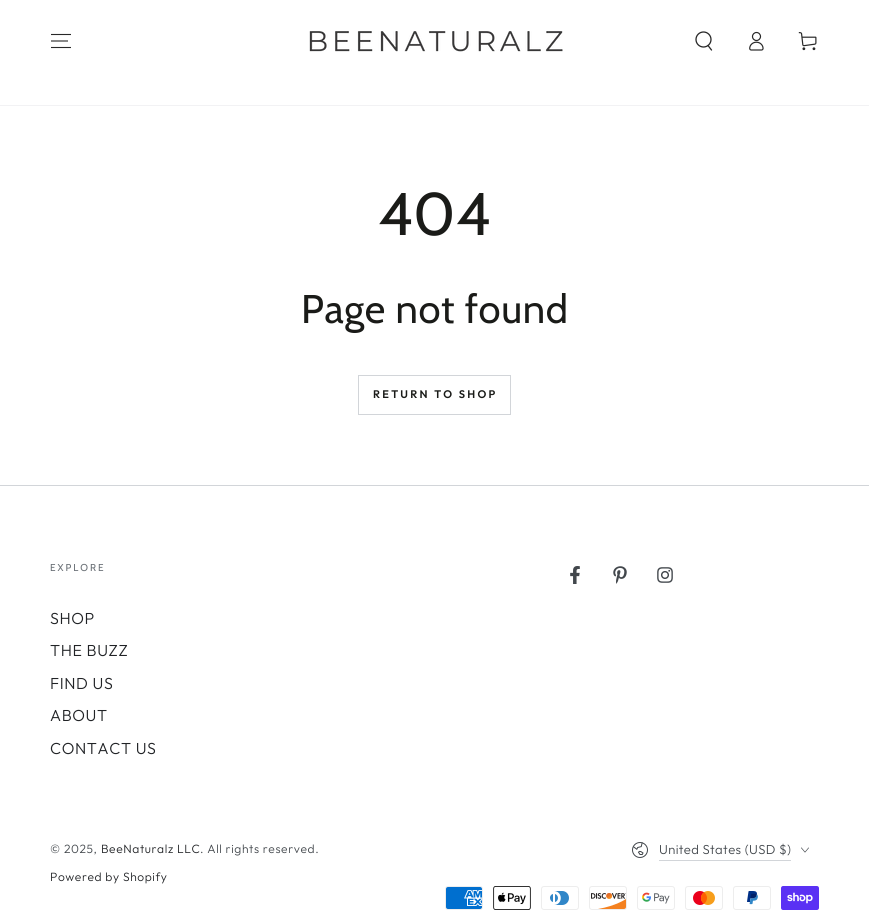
import math
import cairo

surface = cairo.ImageSurface(cairo.Format.RGB24, 869, 918)
ctx = cairo.Context(surface)
options = cairo.FontOptions()
options.set_hint_metrics(cairo.HintMetrics.OFF)
options.set_hint_style(cairo.HintStyle.NONE)
ctx.set_font_options(options)
ctx.set_miter_limit(4)


def ink(r, g, b):
    ctx.set_source_rgb(r / 255, g / 255, b / 255)


def write_spaced(x, y, s, letter, word):
    ctx.move_to(x, y)
    for ch in s:
        ctx.show_text(ch)
        ctx.rel_move_to(letter + word * (ch == ' '), 0)


def block(x, y, w, h, *color):
    ink(*color)
    ctx.rectangle(x, y, w, h)
    ctx.fill()


def paste(path, x, y, w, h):
    ctx.save()
    ctx.set_source_surface(cairo.ImageSurface.create_from_png(path), x, y)
    ctx.rectangle(x, y, w, h)
    ctx.fill()
    ctx.restore()


ink(255, 255, 255)
ctx.paint()
block(0, 105, 869, 1, 242, 242, 244)
ctx.new_path()
ctx.move_to(51, 47.5)
ctx.line_to(71, 47.5)
ctx.move_to(51, 41)
ctx.line_to(68, 41)
ctx.move_to(51, 34.5)
ctx.line_to(71, 34.5)
ink(40, 40, 40)
ctx.set_line_width(1.1)
ctx.stroke()
paste("pic1.png", 309, 31, 254, 21)
ctx.arc(703.5, 39.5, 7.5, 0, 2 * math.pi)
ctx.set_line_width(1.3)
ctx.stroke()
ctx.new_path()
ctx.move_to(708, 45.5)
ctx.line_to(711.5, 50)
ctx.set_line_cap(cairo.LineCap.ROUND)
ctx.stroke()
paste("pic2.png", 749, 31, 15, 20)
paste("pic3.png", 798, 32, 19, 19)
ctx.select_font_face("Cabin")
ctx.set_font_size(60)
ink(26, 27, 24)
write_spaced(378, 235, "404", 0.6, 0)
ctx.set_font_size(40)
write_spaced(301, 323, "Page not found", 0.6, 0)
ctx.rectangle(358.5, 375.5, 152, 39)
ink(210, 213, 217)
ctx.set_line_width(1)
ctx.set_line_cap(cairo.LineCap.BUTT)
ctx.stroke()
ctx.select_font_face("Outfit SemiBold")
ctx.set_font_size(11)
ink(26, 27, 24)
write_spaced(373, 398, "RETURN TO SHOP", 2.25, 0)
block(0, 485, 869, 1, 210, 213, 217)
ctx.select_font_face("Cabin")
ctx.set_font_size(10)
ink(107, 113, 119)
write_spaced(50, 571, "EXPLORE", 2, 0)
ctx.select_font_face("Outfit Light")
ctx.set_font_size(16)
ink(33, 35, 38)
write_spaced(50, 624, "SHOP", 0.6, 0)
write_spaced(50, 656, "THE BUZZ", 0.6, 0)
write_spaced(50, 689, "FIND US", 0.6, 0)
write_spaced(50, 721, "ABOUT", 0.6, 0)
write_spaced(50, 754, "CONTACT US", 0.6, 0)
paste("pic4.png", 570, 566, 10, 18)
paste("pic5.png", 613, 566, 14, 18)
paste("pic6.png", 657, 567, 16, 16)
ctx.set_font_size(12)
ink(66, 71, 76)
write_spaced(50, 853, "© 2025,", 0.6, 0)
ink(33, 35, 38)
write_spaced(101, 853, "BeeNaturalz LLC", 0.6, 0)
ink(66, 71, 76)
write_spaced(200, 853, ". All rights reserved.", 0.6, 0)
ink(33, 35, 38)
write_spaced(50, 881, "Powered by Shopify", 0.6, 0)
paste("pic7.png", 632, 842, 16, 16)
block(659, 860, 132, 1, 210, 213, 217)
ctx.set_font_size(13)
ink(66, 71, 76)
write_spaced(659, 854, "United States (USD $)", 0.4, 0)
paste("pic8.png", 801, 847, 8, 6)
paste("pic9.png", 445, 886, 38, 24)
paste("pic10.png", 493, 886, 38, 24)
paste("pic11.png", 541, 886, 38, 24)
paste("pic12.png", 589, 886, 38, 24)
paste("pic13.png", 637, 886, 38, 24)
paste("pic14.png", 685, 886, 38, 24)
paste("pic15.png", 733, 886, 38, 24)
paste("pic16.png", 781, 886, 38, 24)
surface.write_to_png("screenshot.png")
